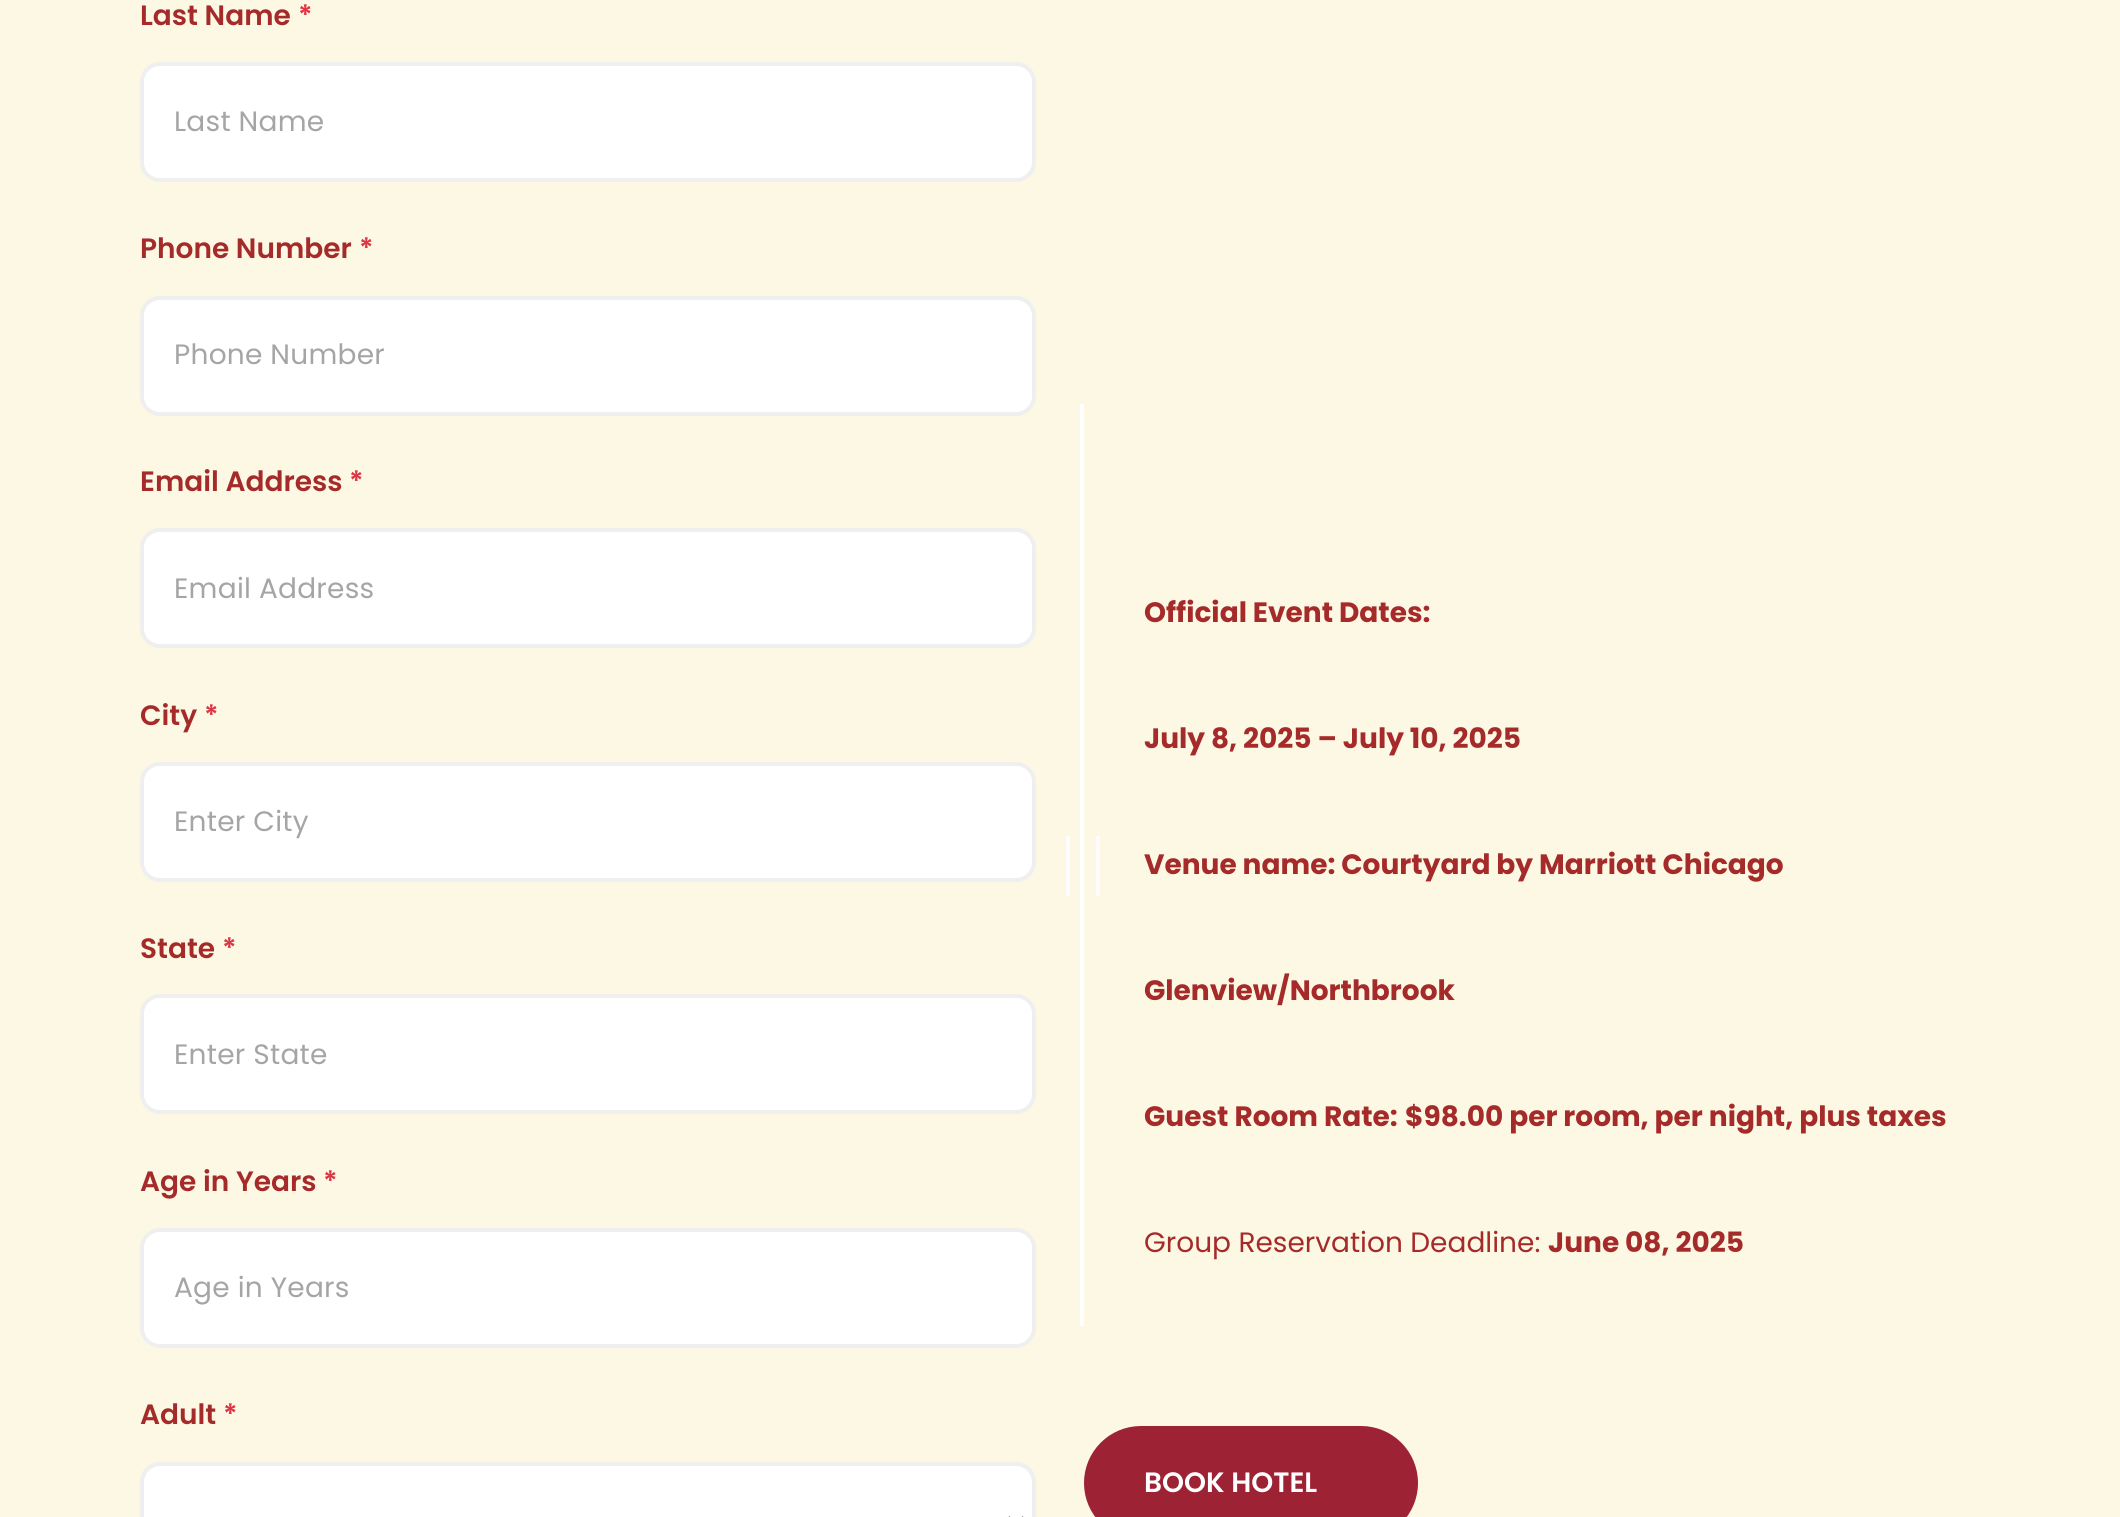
import math
import cairo

surface = cairo.ImageSurface(cairo.Format.RGB24, 2120, 1517)
ctx = cairo.Context(surface)
options = cairo.FontOptions()
options.set_hint_metrics(cairo.HintMetrics.OFF)
options.set_hint_style(cairo.HintStyle.NONE)
ctx.set_font_options(options)
ctx.set_miter_limit(4)


def ink(r, g, b):
    ctx.set_source_rgb(r / 255, g / 255, b / 255)


def write(x, y, s, family, size, color, bold=False, italic=False):
    ctx.select_font_face(family, cairo.FontSlant.ITALIC if italic else cairo.FontSlant.NORMAL, cairo.FontWeight.BOLD if bold else cairo.FontWeight.NORMAL)
    ctx.set_font_size(size)
    ink(*color)
    ctx.move_to(x, y)
    ctx.show_text(s)


def write_spaced(x, y, s, letter, word):
    ctx.move_to(x, y)
    for ch in s:
        ctx.show_text(ch)
        ctx.rel_move_to(letter + word * (ch == ' '), 0)


def block(x, y, w, h, *color):
    ink(*color)
    ctx.rectangle(x, y, w, h)
    ctx.fill()


def round_path(x, y, w, h, r):
    ctx.new_sub_path()
    for i, (u, v) in enumerate([(x + w - r, y + h - r), (x + r, y + h - r), (x + r, y + r), (x + w - r, y + r)]):
        ctx.arc(u, v, r, i * math.pi / 2, (i + 1) * math.pi / 2)
    ctx.close_path()


s1 = dict(family="Poppins SemiBold", size=28, color=(165, 42, 42))
s2 = dict(family="Poppins SemiBold", size=28, color=(220, 53, 69))
s3 = dict(family="Poppins", size=28, color=(165, 42, 42), bold=True)
s4 = dict(family="Poppins", size=28, color=(165, 42, 42))
s5 = dict(family="Poppins SemiBold", size=28, color=(255, 255, 255))

ink(252, 248, 227)
ctx.paint()
write(140, 25, "Last Name", **s1)
write(298, 25, "*", **s2)
ink(255, 255, 255)
round_path(142, 64, 892, 116, 18)
ctx.fill_preserve()
ink(239, 239, 239)
ctx.set_line_width(4)
ctx.stroke()
ctx.select_font_face("Poppins")
ink(165, 165, 165)
write_spaced(174, 131, "Last Name", 0.25, 0)
write(140, 258, "Phone Number", **s1)
write(359, 258, "*", **s2)
ink(255, 255, 255)
round_path(142, 298, 892, 116, 18)
ctx.fill_preserve()
ink(239, 239, 239)
ctx.stroke()
ctx.select_font_face("Poppins")
ink(165, 165, 165)
write_spaced(174, 364, "Phone Number", 0.25, 0)
write(140, 491, "Email Address", **s1)
write(349, 491, "*", **s2)
ink(255, 255, 255)
round_path(142, 530, 892, 116, 18)
ctx.fill_preserve()
ink(239, 239, 239)
ctx.stroke()
ctx.select_font_face("Poppins")
ink(165, 165, 165)
write_spaced(174, 598, "Email Address", 0.25, 0)
write(140, 725, "City", **s1)
write(204, 725, "*", **s2)
ink(255, 255, 255)
round_path(142, 764, 892, 116, 18)
ctx.fill_preserve()
ink(239, 239, 239)
ctx.stroke()
ctx.select_font_face("Poppins")
ink(165, 165, 165)
write_spaced(174, 831, "Enter City", 0.25, 0)
write(140, 958, "State", **s1)
write(222, 958, "*", **s2)
ink(255, 255, 255)
round_path(142, 996, 892, 116, 18)
ctx.fill_preserve()
ink(239, 239, 239)
ctx.stroke()
ctx.select_font_face("Poppins")
ink(165, 165, 165)
write_spaced(174, 1064, "Enter State", 0.25, 0)
write(140, 1191, "Age in Years", **s1)
write(323, 1191, "*", **s2)
ink(255, 255, 255)
round_path(142, 1230, 892, 116, 18)
ctx.fill_preserve()
ink(239, 239, 239)
ctx.stroke()
ctx.select_font_face("Poppins")
ink(165, 165, 165)
write_spaced(174, 1297, "Age in Years", 0.25, 0)
write(140, 1424, "Adult", **s1)
write(223, 1424, "*", **s2)
ink(255, 255, 255)
round_path(144, 1466, 888, 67, 16)
ctx.fill()
round_path(142, 1464, 892, 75, 18)
ink(239, 239, 239)
ctx.stroke()
ctx.new_path()
ctx.move_to(1008, 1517.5)
ctx.line_to(1016, 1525.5)
ctx.line_to(1024, 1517.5)
ink(110, 110, 110)
ctx.stroke()
block(1080, 404, 4, 922, 255, 255, 255)
write(1144, 622, "Official Event Dates:", **s3)
write(1144, 748, "July 8, 2025 – July 10, 2025", **s3)
block(1066, 836, 4, 60, 255, 252, 253)
block(1096, 836, 4, 60, 255, 252, 253)
write(1144, 874, "Venue name: Courtyard by Marriott Chicago", **s3)
write(1144, 1000, "Glenview/Northbrook", **s3)
write(1144, 1126, "Guest Room Rate:", **s3)
write(1405, 1126, "$98.00 per room, per night, plus taxes", **s3)
write(1144, 1252, "Group Reservation Deadline:", **s4)
write(1548, 1252, "June 08, 2025", **s3)
ink(156, 34, 52)
round_path(1084, 1426, 334, 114, 57)
ctx.fill()
write(1144, 1492, "BOOK HOTEL", **s5)
surface.write_to_png("screenshot.png")
